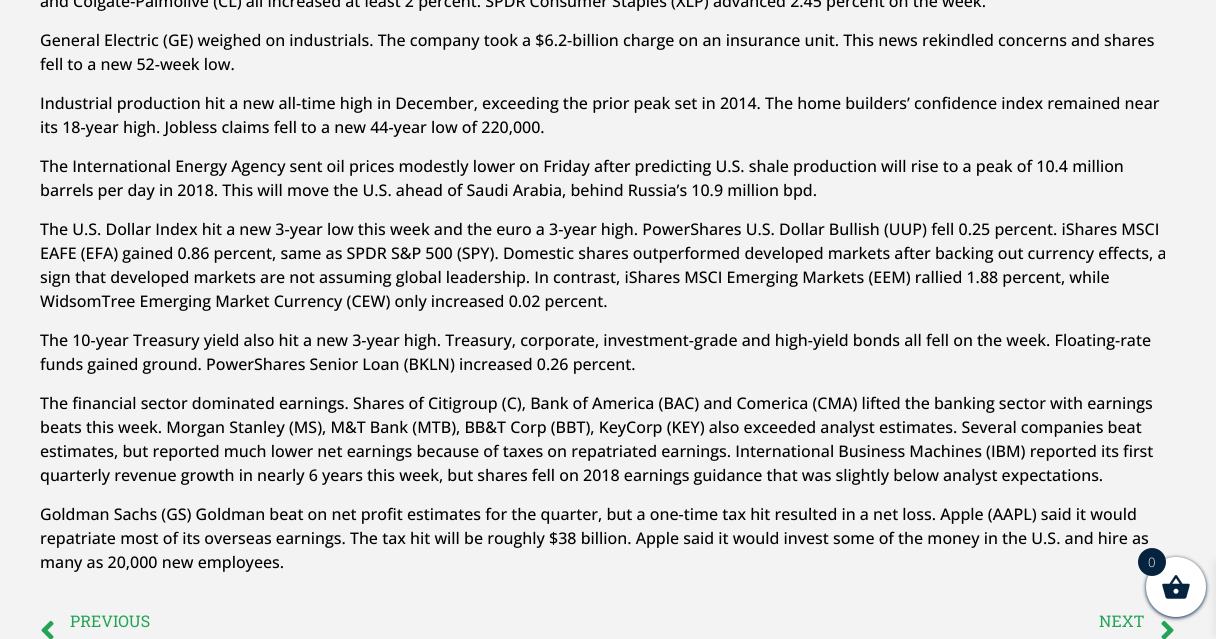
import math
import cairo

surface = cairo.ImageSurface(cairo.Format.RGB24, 1216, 639)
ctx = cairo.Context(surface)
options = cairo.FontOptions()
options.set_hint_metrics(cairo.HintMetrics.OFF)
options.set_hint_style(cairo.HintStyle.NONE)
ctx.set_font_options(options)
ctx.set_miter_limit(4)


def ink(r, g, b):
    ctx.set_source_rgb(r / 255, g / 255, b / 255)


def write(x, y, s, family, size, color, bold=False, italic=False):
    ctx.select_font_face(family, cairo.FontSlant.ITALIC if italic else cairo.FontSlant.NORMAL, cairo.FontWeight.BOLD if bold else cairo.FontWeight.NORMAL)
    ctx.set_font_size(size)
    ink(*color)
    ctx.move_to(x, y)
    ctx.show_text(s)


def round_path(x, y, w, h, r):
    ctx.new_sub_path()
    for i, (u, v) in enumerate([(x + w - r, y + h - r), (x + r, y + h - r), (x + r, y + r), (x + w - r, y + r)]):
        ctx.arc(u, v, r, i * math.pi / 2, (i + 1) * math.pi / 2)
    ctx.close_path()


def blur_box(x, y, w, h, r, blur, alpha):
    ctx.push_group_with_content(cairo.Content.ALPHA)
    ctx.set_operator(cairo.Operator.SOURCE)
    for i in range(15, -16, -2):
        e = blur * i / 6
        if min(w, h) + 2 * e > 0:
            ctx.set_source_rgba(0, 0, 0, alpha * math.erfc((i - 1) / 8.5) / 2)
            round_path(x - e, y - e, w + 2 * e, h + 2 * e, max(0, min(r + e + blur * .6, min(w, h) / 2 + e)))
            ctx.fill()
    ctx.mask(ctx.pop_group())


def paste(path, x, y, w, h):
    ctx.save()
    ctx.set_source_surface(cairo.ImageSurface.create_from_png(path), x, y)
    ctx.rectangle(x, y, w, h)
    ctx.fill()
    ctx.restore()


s1 = dict(family="Open Sans Medium", size=16, color=(0, 0, 0))
s2 = dict(family="Roboto Slab", size=16, color=(35, 164, 85))
s3 = dict(family="Open Sans Light", size=13, color=(255, 255, 255))

ink(243, 243, 243)
ctx.paint()
write(40, 7, "and Colgate-Palmolive (CL) all increased at least 2 percent. SPDR Consumer Staples (XLP) advanced 2.45 percent on the week.", **s1)
write(40, 46, "General Electric (GE) weighed on industrials. The company took a $6.2-billion charge on an insurance unit. This news rekindled concerns and shares", **s1)
write(40, 70, "fell to a new 52-week low.", **s1)
write(40, 109, "Industrial production hit a new all-time high in December, exceeding the prior peak set in 2014. The home builders’ confidence index remained near", **s1)
write(40, 133, "its 18-year high. Jobless claims fell to a new 44-year low of 220,000.", **s1)
write(40, 172, "The International Energy Agency sent oil prices modestly lower on Friday after predicting U.S. shale production will rise to a peak of 10.4 million", **s1)
write(40, 196, "barrels per day in 2018. This will move the U.S. ahead of Saudi Arabia, behind Russia’s 10.9 million bpd.", **s1)
write(40, 235, "The U.S. Dollar Index hit a new 3-year low this week and the euro a 3-year high. PowerShares U.S. Dollar Bullish (UUP) fell 0.25 percent. iShares MSCI", **s1)
write(40, 259, "EAFE (EFA) gained 0.86 percent, same as SPDR S&P 500 (SPY). Domestic shares outperformed developed markets after backing out currency effects, a", **s1)
write(40, 283, "sign that developed markets are not assuming global leadership. In contrast, iShares MSCI Emerging Markets (EEM) rallied 1.88 percent, while", **s1)
write(40, 307, "WidsomTree Emerging Market Currency (CEW) only increased 0.02 percent.", **s1)
write(40, 346, "The 10-year Treasury yield also hit a new 3-year high. Treasury, corporate, investment-grade and high-yield bonds all fell on the week. Floating-rate", **s1)
write(40, 370, "funds gained ground. PowerShares Senior Loan (BKLN) increased 0.26 percent.", **s1)
write(40, 409, "The financial sector dominated earnings. Shares of Citigroup (C), Bank of America (BAC) and Comerica (CMA) lifted the banking sector with earnings", **s1)
write(40, 433, "beats this week. Morgan Stanley (MS), M&T Bank (MTB), BB&T Corp (BBT), KeyCorp (KEY) also exceeded analyst estimates. Several companies beat", **s1)
write(40, 457, "estimates, but reported much lower net earnings because of taxes on repatriated earnings. International Business Machines (IBM) reported its first", **s1)
write(40, 481, "quarterly revenue growth in nearly 6 years this week, but shares fell on 2018 earnings guidance that was slightly below analyst expectations.", **s1)
write(40, 520, "Goldman Sachs (GS) Goldman beat on net profit estimates for the quarter, but a one-time tax hit resulted in a net loss. Apple (AAPL) said it would", **s1)
write(40, 544, "repatriate most of its overseas earnings. The tax hit will be roughly $38 billion. Apple said it would invest some of the money in the U.S. and hire as", **s1)
write(40, 568, "many as 20,000 new employees.", **s1)
paste("pic1.png", 41, 620, 13, 19)
write(70, 627, "PREVIOUS", **s2)
write(1099, 627, "NEXT", **s2)
paste("pic2.png", 1161, 620, 13, 19)
ink(5, 34, 63)
blur_box(1146, 558, 60, 60, 30, 2, 1)
ink(0, 0, 0)
blur_box(1216, 563, 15, 71, 0, 5, 0.1)
ink(255, 255, 255)
ctx.arc(1176, 587, 30, 0, 2 * math.pi)
ctx.fill()
paste("pic3.png", 1162, 575, 28, 24)
ink(5, 34, 63)
ctx.arc(1152, 562, 14, 0, 2 * math.pi)
ctx.fill()
write(1148, 567, "0", **s3)
surface.write_to_png("screenshot.png")
